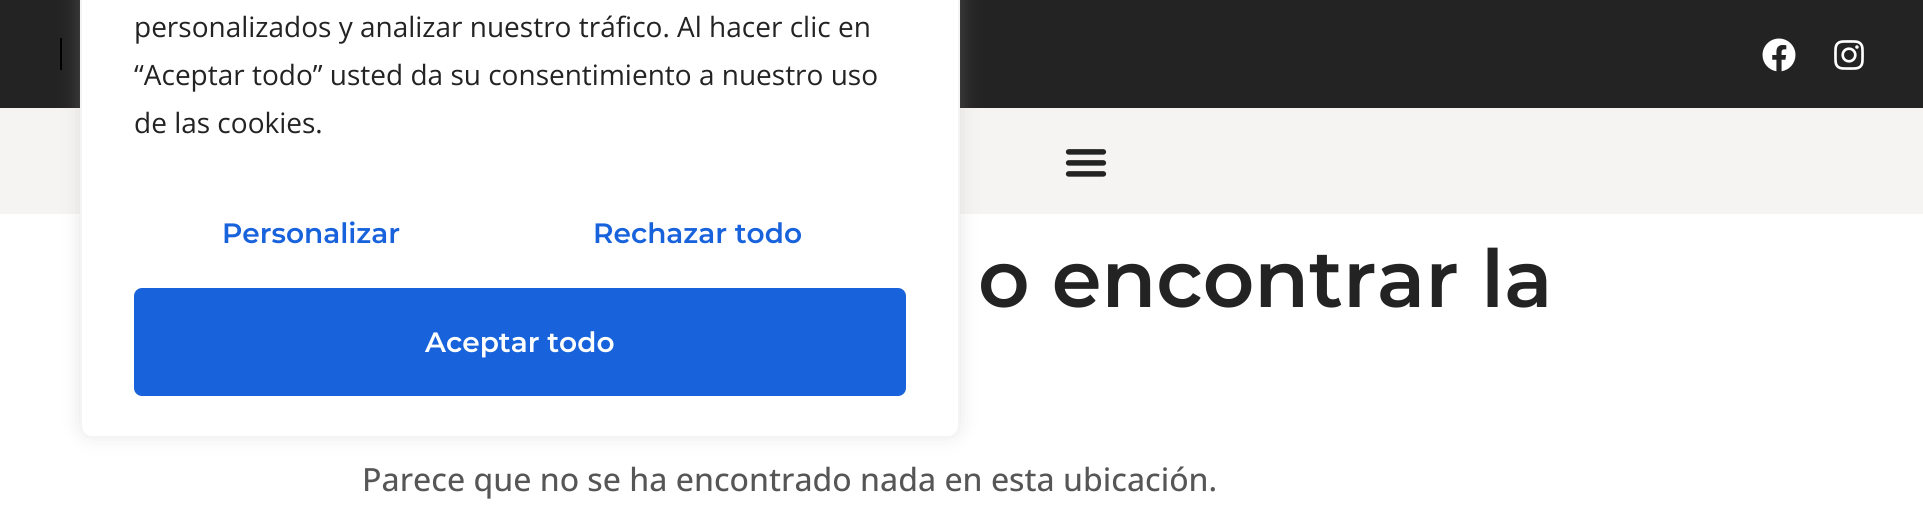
import math
import cairo

surface = cairo.ImageSurface(cairo.Format.RGB24, 1923, 517)
ctx = cairo.Context(surface)
options = cairo.FontOptions()
options.set_hint_metrics(cairo.HintMetrics.OFF)
options.set_hint_style(cairo.HintStyle.NONE)
ctx.set_font_options(options)
ctx.set_miter_limit(4)


def ink(r, g, b):
    ctx.set_source_rgb(r / 255, g / 255, b / 255)


def write(x, y, s, family, size, color, bold=False, italic=False):
    ctx.select_font_face(family, cairo.FontSlant.ITALIC if italic else cairo.FontSlant.NORMAL, cairo.FontWeight.BOLD if bold else cairo.FontWeight.NORMAL)
    ctx.set_font_size(size)
    ink(*color)
    ctx.move_to(x, y)
    ctx.show_text(s)


def block(x, y, w, h, *color):
    ink(*color)
    ctx.rectangle(x, y, w, h)
    ctx.fill()


def round_path(x, y, w, h, r):
    ctx.new_sub_path()
    for i, (u, v) in enumerate([(x + w - r, y + h - r), (x + r, y + h - r), (x + r, y + r), (x + w - r, y + r)]):
        ctx.arc(u, v, r, i * math.pi / 2, (i + 1) * math.pi / 2)
    ctx.close_path()


def blur_box(x, y, w, h, r, blur, alpha):
    ctx.push_group_with_content(cairo.Content.ALPHA)
    ctx.set_operator(cairo.Operator.SOURCE)
    for i in range(15, -16, -2):
        e = blur * i / 6
        if min(w, h) + 2 * e > 0:
            ctx.set_source_rgba(0, 0, 0, alpha * math.erfc((i - 1) / 8.5) / 2)
            round_path(x - e, y - e, w + 2 * e, h + 2 * e, max(0, min(r + e + blur * .6, min(w, h) / 2 + e)))
            ctx.fill()
    ctx.mask(ctx.pop_group())


def paste(path, x, y, w, h):
    ctx.save()
    ctx.set_source_surface(cairo.ImageSurface.create_from_png(path), x, y)
    ctx.rectangle(x, y, w, h)
    ctx.fill()
    ctx.restore()


s1 = dict(family="Open Sans", size=28, color=(35, 35, 35))
s2 = dict(family="Montserrat SemiBold", size=28, color=(24, 99, 220))
s3 = dict(family="Montserrat SemiBold", size=28, color=(255, 255, 255))
s4 = dict(family="Montserrat SemiBold", size=80, color=(35, 35, 35))
s5 = dict(family="Open Sans Medium", size=32, color=(86, 86, 86))

ink(255, 255, 255)
ctx.paint()
block(0, 0, 1923, 108, 35, 35, 35)
block(60, 38, 2, 32, 0, 0, 0)
paste("pic1.png", 1762, 38, 34, 34)
paste("pic2.png", 1834, 40, 30, 30)
block(0, 108, 1923, 106, 245, 244, 242)
paste("pic3.png", 1065, 149, 42, 28)
ink(172, 171, 171)
blur_box(80, -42, 880, 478, 12, 10, 0.3)
ink(255, 255, 255)
round_path(81, -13, 878, 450, 11)
ctx.fill_preserve()
ink(244, 244, 244)
ctx.stroke()
write(134, 37, "personalizados y analizar nuestro tráfico. Al hacer clic en", **s1)
write(134, 85, "“Aceptar todo” usted da su consentimiento a nuestro uso", **s1)
write(134, 133, "de las cookies.", **s1)
write(222, 243, "Personalizar", **s2)
write(593, 243, "Rechazar todo", **s2)
round_path(134, 288, 772, 108, 8)
ctx.fill()
write(425, 352, "Aceptar todo", **s3)
write(978, 307, "o encontrar la", **s4)
write(362, 491, "Parece que no se ha encontrado nada en esta ubicación.", **s5)
surface.write_to_png("screenshot.png")
